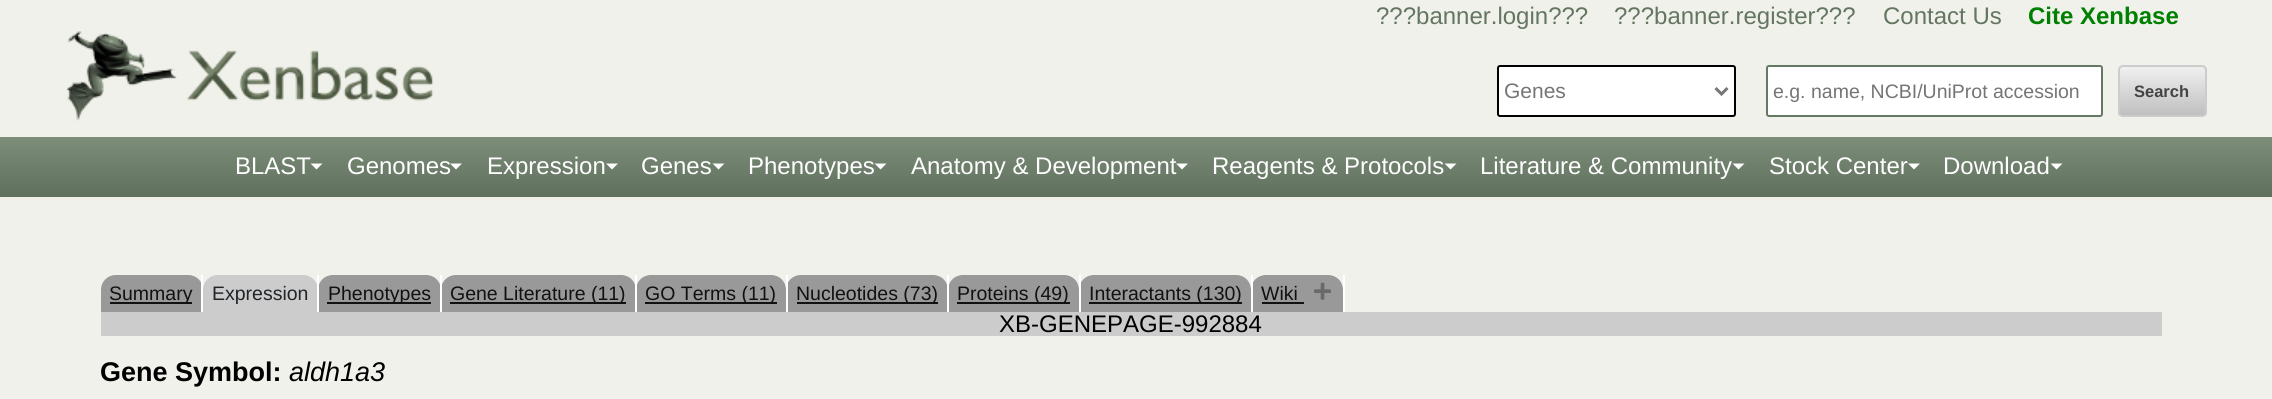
import math
import cairo

surface = cairo.ImageSurface(cairo.Format.RGB24, 2272, 399)
ctx = cairo.Context(surface)
options = cairo.FontOptions()
options.set_hint_metrics(cairo.HintMetrics.OFF)
options.set_hint_style(cairo.HintStyle.NONE)
ctx.set_font_options(options)
ctx.set_miter_limit(4)


def ink(r, g, b):
    ctx.set_source_rgb(r / 255, g / 255, b / 255)


def write(x, y, s, family, size, color, bold=False, italic=False):
    ctx.select_font_face(family, cairo.FontSlant.ITALIC if italic else cairo.FontSlant.NORMAL, cairo.FontWeight.BOLD if bold else cairo.FontWeight.NORMAL)
    ctx.set_font_size(size)
    ink(*color)
    ctx.move_to(x, y)
    ctx.show_text(s)


def block(x, y, w, h, *color):
    ink(*color)
    ctx.rectangle(x, y, w, h)
    ctx.fill()


def round_path(x, y, w, h, r):
    ctx.new_sub_path()
    for i, (u, v) in enumerate([(x + w - r, y + h - r), (x + r, y + h - r), (x + r, y + r), (x + w - r, y + r)]):
        ctx.arc(u, v, r, i * math.pi / 2, (i + 1) * math.pi / 2)
    ctx.close_path()


def paste(path, x, y, w, h):
    ctx.save()
    ctx.set_source_surface(cairo.ImageSurface.create_from_png(path), x, y)
    ctx.rectangle(x, y, w, h)
    ctx.fill()
    ctx.restore()


s1 = dict(family="Liberation Sans", size=24, color=(100, 117, 98))
s2 = dict(family="Liberation Sans", size=24, color=(0, 128, 0), bold=True)
s3 = dict(family="Liberation Sans", size=21, color=(117, 117, 117))
s4 = dict(family="Liberation Sans", size=19.5, color=(117, 117, 117))
s5 = dict(family="Liberation Sans", size=16.5, color=(68, 68, 68), bold=True)
s6 = dict(family="Liberation Sans", size=24, color=(255, 255, 255))
s7 = dict(family="Liberation Sans", size=19.5, color=(17, 17, 17))
s8 = dict(family="Liberation Sans", size=19.5, color=(33, 37, 41))
s9 = dict(family="Liberation Sans", size=24, color=(0, 0, 0))
s10 = dict(family="Liberation Sans", size=27, color=(0, 0, 0), bold=True)
s11 = dict(family="Liberation Sans", size=27, color=(0, 0, 0), italic=True)

ink(240, 241, 234)
ctx.paint()
write(1376, 24, "???banner.login???", **s1)
write(1614, 24, "???banner.register???", **s1)
write(1883, 24, "Contact Us", **s1)
write(2028, 24, "Cite Xenbase", **s2)
paste("pic1.png", 66, 31, 368, 90)
ink(255, 255, 255)
round_path(1498, 66, 237, 50, 2)
ctx.fill_preserve()
ink(0, 0, 0)
ctx.stroke()
ctx.new_path()
ctx.move_to(1715.5, 88)
ctx.line_to(1721.5, 94)
ctx.line_to(1727.5, 88)
ink(119, 119, 119)
ctx.set_line_width(3)
ctx.stroke()
write(1504, 98, "Genes", **s3)
ink(255, 255, 255)
round_path(1767, 66, 335, 50, 2)
ctx.fill_preserve()
ink(102, 119, 100)
ctx.set_line_width(2)
ctx.stroke()
write(1773, 98, "e.g. name, NCBI/UniProt accession", **s4)
ctx.save()
round_path(2118, 65, 89, 52, 5)
ctx.clip()
gradient = cairo.LinearGradient(2162, 66, 2162, 116)
gradient.add_color_stop_rgba(0, 0.945, 0.945, 0.945, 1)
gradient.add_color_stop_rgba(1, 0.745, 0.745, 0.745, 1)
ctx.set_source(gradient)
ctx.rectangle(2118, 66, 89, 50)
ctx.fill()
ctx.restore()
round_path(2119, 66, 87, 50, 4)
ink(204, 204, 204)
ctx.stroke()
write(2134, 97, "Search", **s5)
gradient = cairo.LinearGradient(1136, 136, 1136, 197)
gradient.add_color_stop_rgba(0, 0.49, 0.557, 0.482, 1)
gradient.add_color_stop_rgba(1, 0.373, 0.439, 0.365, 1)
ctx.set_source(gradient)
ctx.rectangle(0, 137, 2272, 60)
ctx.fill()
write(235, 174, "BLAST", **s6)
ctx.new_path()
ctx.move_to(310.5, 163.5)
ctx.line_to(322.5, 163.5)
ctx.line_to(316.5, 169.5)
ctx.close_path()
ctx.fill()
write(347, 174, "Genomes", **s6)
ctx.new_path()
ctx.move_to(450, 163.5)
ctx.line_to(462, 163.5)
ctx.line_to(456, 169.5)
ctx.close_path()
ctx.fill()
write(487, 174, "Expression", **s6)
ctx.new_path()
ctx.move_to(606, 163.5)
ctx.line_to(618, 163.5)
ctx.line_to(612, 169.5)
ctx.close_path()
ctx.fill()
write(641, 174, "Genes", **s6)
ctx.new_path()
ctx.move_to(712.5, 163.5)
ctx.line_to(724.5, 163.5)
ctx.line_to(718.5, 169.5)
ctx.close_path()
ctx.fill()
write(748, 174, "Phenotypes", **s6)
ctx.new_path()
ctx.move_to(874.5, 163.5)
ctx.line_to(886.5, 163.5)
ctx.line_to(880.5, 169.5)
ctx.close_path()
ctx.fill()
write(911, 174, "Anatomy & Development", **s6)
ctx.new_path()
ctx.move_to(1176, 163.5)
ctx.line_to(1188, 163.5)
ctx.line_to(1182, 169.5)
ctx.close_path()
ctx.fill()
write(1212, 174, "Reagents & Protocols", **s6)
ctx.new_path()
ctx.move_to(1444.5, 163.5)
ctx.line_to(1456.5, 163.5)
ctx.line_to(1450.5, 169.5)
ctx.close_path()
ctx.fill()
write(1480, 174, "Literature & Community", **s6)
ctx.new_path()
ctx.move_to(1732.5, 163.5)
ctx.line_to(1744.5, 163.5)
ctx.line_to(1738.5, 169.5)
ctx.close_path()
ctx.fill()
write(1769, 174, "Stock Center", **s6)
ctx.new_path()
ctx.move_to(1908, 163.5)
ctx.line_to(1920, 163.5)
ctx.line_to(1914, 169.5)
ctx.close_path()
ctx.fill()
write(1943, 174, "Download", **s6)
ctx.new_path()
ctx.move_to(2050.5, 163.5)
ctx.line_to(2062.5, 163.5)
ctx.line_to(2056.5, 169.5)
ctx.close_path()
ctx.fill()
ink(153, 153, 153)
ctx.new_path()
ctx.move_to(116, 275)
ctx.line_to(188, 275)
ctx.curve_to(196.5, 275, 203, 281.5, 203, 290)
ctx.line_to(203, 312)
ctx.line_to(101, 312)
ctx.line_to(101, 290)
ctx.curve_to(101, 281.5, 107.5, 275, 116, 275)
ctx.close_path()
ctx.fill()
block(201, 275, 2, 39, 255, 255, 255)
block(110, 302, 82, 2, 17, 17, 17)
write(109, 300, "Summary", **s7)
ink(204, 204, 204)
ctx.new_path()
ctx.move_to(218, 275)
ctx.line_to(303, 275)
ctx.curve_to(311.5, 275, 318, 281.5, 318, 290)
ctx.line_to(318, 312)
ctx.line_to(203, 312)
ctx.line_to(203, 290)
ctx.curve_to(203, 281.5, 209.5, 275, 218, 275)
ctx.close_path()
ctx.fill()
ink(153, 153, 153)
ctx.new_path()
ctx.move_to(333, 275)
ctx.line_to(426, 275)
ctx.curve_to(434.5, 275, 441, 281.5, 441, 290)
ctx.line_to(441, 312)
ctx.line_to(318, 312)
ctx.line_to(318, 290)
ctx.curve_to(318, 281.5, 324.5, 275, 333, 275)
ctx.close_path()
ctx.fill()
block(317, 275, 2, 39, 255, 255, 255)
write(212, 300, "Expression", **s8)
ink(153, 153, 153)
ctx.new_path()
ctx.move_to(456, 275)
ctx.line_to(621, 275)
ctx.curve_to(629.5, 275, 636, 281.5, 636, 290)
ctx.line_to(636, 312)
ctx.line_to(441, 312)
ctx.line_to(441, 290)
ctx.curve_to(441, 281.5, 447.5, 275, 456, 275)
ctx.close_path()
ctx.fill()
block(440, 275, 2, 39, 255, 255, 255)
block(327, 302, 104, 2, 17, 17, 17)
write(328, 300, "Phenotypes", **s7)
ink(153, 153, 153)
ctx.new_path()
ctx.move_to(651, 275)
ctx.line_to(771, 275)
ctx.curve_to(779.5, 275, 786, 281.5, 786, 290)
ctx.line_to(786, 312)
ctx.line_to(636, 312)
ctx.line_to(636, 290)
ctx.curve_to(636, 281.5, 642.5, 275, 651, 275)
ctx.close_path()
ctx.fill()
block(635, 275, 2, 39, 255, 255, 255)
block(450, 302, 176, 2, 17, 17, 17)
write(450, 300, "Gene Literature (11)", **s7)
ink(153, 153, 153)
ctx.new_path()
ctx.move_to(801, 275)
ctx.line_to(933, 275)
ctx.curve_to(941.5, 275, 948, 281.5, 948, 290)
ctx.line_to(948, 312)
ctx.line_to(786, 312)
ctx.line_to(786, 290)
ctx.curve_to(786, 281.5, 792.5, 275, 801, 275)
ctx.close_path()
ctx.fill()
block(786, 275, 2, 39, 255, 255, 255)
block(645, 302, 132, 2, 17, 17, 17)
write(645, 300, "GO Terms (11)", **s7)
ink(153, 153, 153)
ctx.new_path()
ctx.move_to(963, 275)
ctx.line_to(1064, 275)
ctx.curve_to(1072.5, 275, 1079, 281.5, 1079, 290)
ctx.line_to(1079, 312)
ctx.line_to(948, 312)
ctx.line_to(948, 290)
ctx.curve_to(948, 281.5, 954.5, 275, 963, 275)
ctx.close_path()
ctx.fill()
block(947, 275, 2, 39, 255, 255, 255)
block(797, 302, 141, 2, 17, 17, 17)
write(796, 300, "Nucleotides (73)", **s7)
ink(153, 153, 153)
ctx.new_path()
ctx.move_to(1094, 275)
ctx.line_to(1236, 275)
ctx.curve_to(1244.5, 275, 1251, 281.5, 1251, 290)
ctx.line_to(1251, 312)
ctx.line_to(1079, 312)
ctx.line_to(1079, 290)
ctx.curve_to(1079, 281.5, 1085.5, 275, 1094, 275)
ctx.close_path()
ctx.fill()
block(1079, 275, 2, 39, 255, 255, 255)
block(957, 302, 113, 2, 17, 17, 17)
write(957, 300, "Proteins (49)", **s7)
ink(153, 153, 153)
ctx.new_path()
ctx.move_to(1266, 275)
ctx.line_to(1328, 275)
ctx.curve_to(1336.5, 275, 1343, 281.5, 1343, 290)
ctx.line_to(1343, 312)
ctx.line_to(1251, 312)
ctx.line_to(1251, 290)
ctx.curve_to(1251, 281.5, 1257.5, 275, 1266, 275)
ctx.close_path()
ctx.fill()
block(1251, 275, 2, 39, 255, 255, 255)
block(1089, 302, 153, 2, 17, 17, 17)
write(1089, 300, "Interactants (130)", **s7)
block(1343, 275, 2, 39, 255, 255, 255)
write(1261, 300, "Wiki", **s7)
block(1262, 302, 42, 2, 17, 17, 17)
paste("pic2.png", 1314, 282, 17, 18)
block(101, 312, 2061, 24, 204, 204, 204)
write(999, 332, "XB-GENEPAGE-992884", **s9)
write(100, 381, "Gene Symbol:", **s10)
write(289, 381, "aldh1a3", **s11)
surface.write_to_png("screenshot.png")
